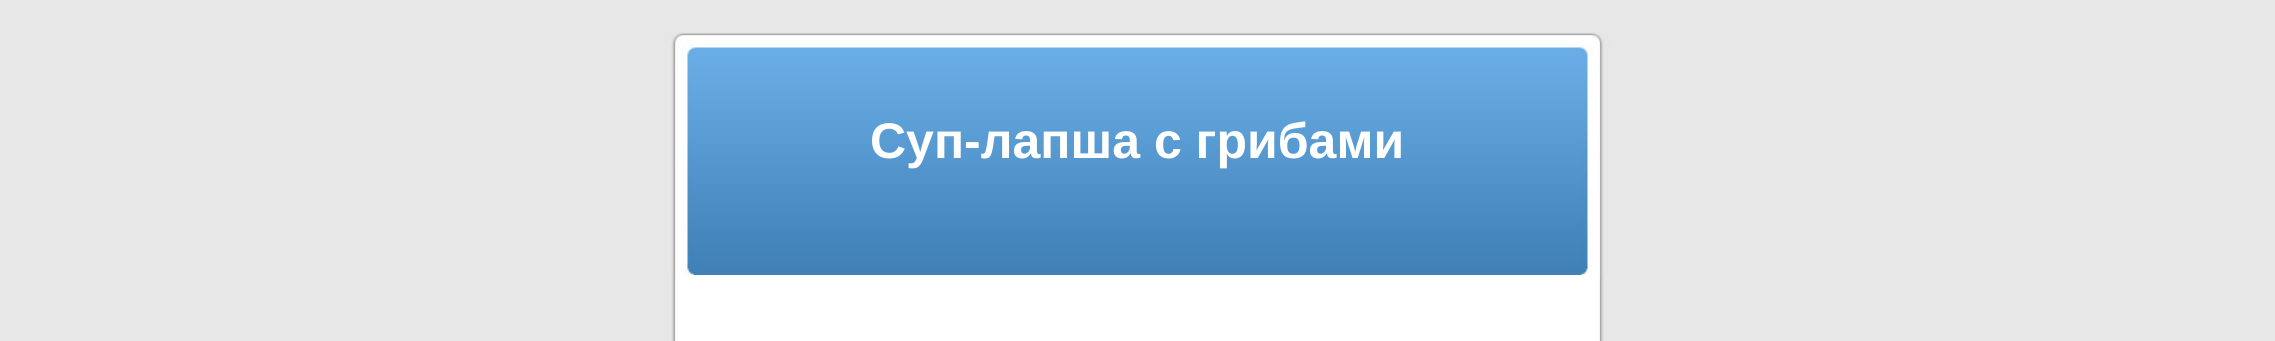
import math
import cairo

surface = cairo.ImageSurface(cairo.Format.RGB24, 2275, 341)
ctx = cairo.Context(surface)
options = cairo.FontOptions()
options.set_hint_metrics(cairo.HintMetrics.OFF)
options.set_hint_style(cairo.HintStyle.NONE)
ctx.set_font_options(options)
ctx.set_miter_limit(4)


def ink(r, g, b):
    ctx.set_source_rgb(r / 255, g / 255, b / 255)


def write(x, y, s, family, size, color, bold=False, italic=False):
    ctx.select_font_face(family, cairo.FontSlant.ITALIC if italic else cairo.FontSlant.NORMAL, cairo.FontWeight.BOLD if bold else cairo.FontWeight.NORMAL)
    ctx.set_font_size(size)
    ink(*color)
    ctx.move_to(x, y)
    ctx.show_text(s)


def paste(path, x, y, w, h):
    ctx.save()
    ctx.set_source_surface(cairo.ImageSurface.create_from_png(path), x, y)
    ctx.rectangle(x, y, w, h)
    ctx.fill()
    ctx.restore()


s1 = dict(family="Liberation Sans", size=50, color=(255, 255, 255), bold=True)

ink(231, 231, 231)
ctx.paint()
paste("pic1.png", 671, 275, 933, 66)
paste("pic2.png", 664, 25, 947, 250)
write(870, 158, "Суп-лапша с грибами", **s1)
surface.write_to_png("screenshot.png")
